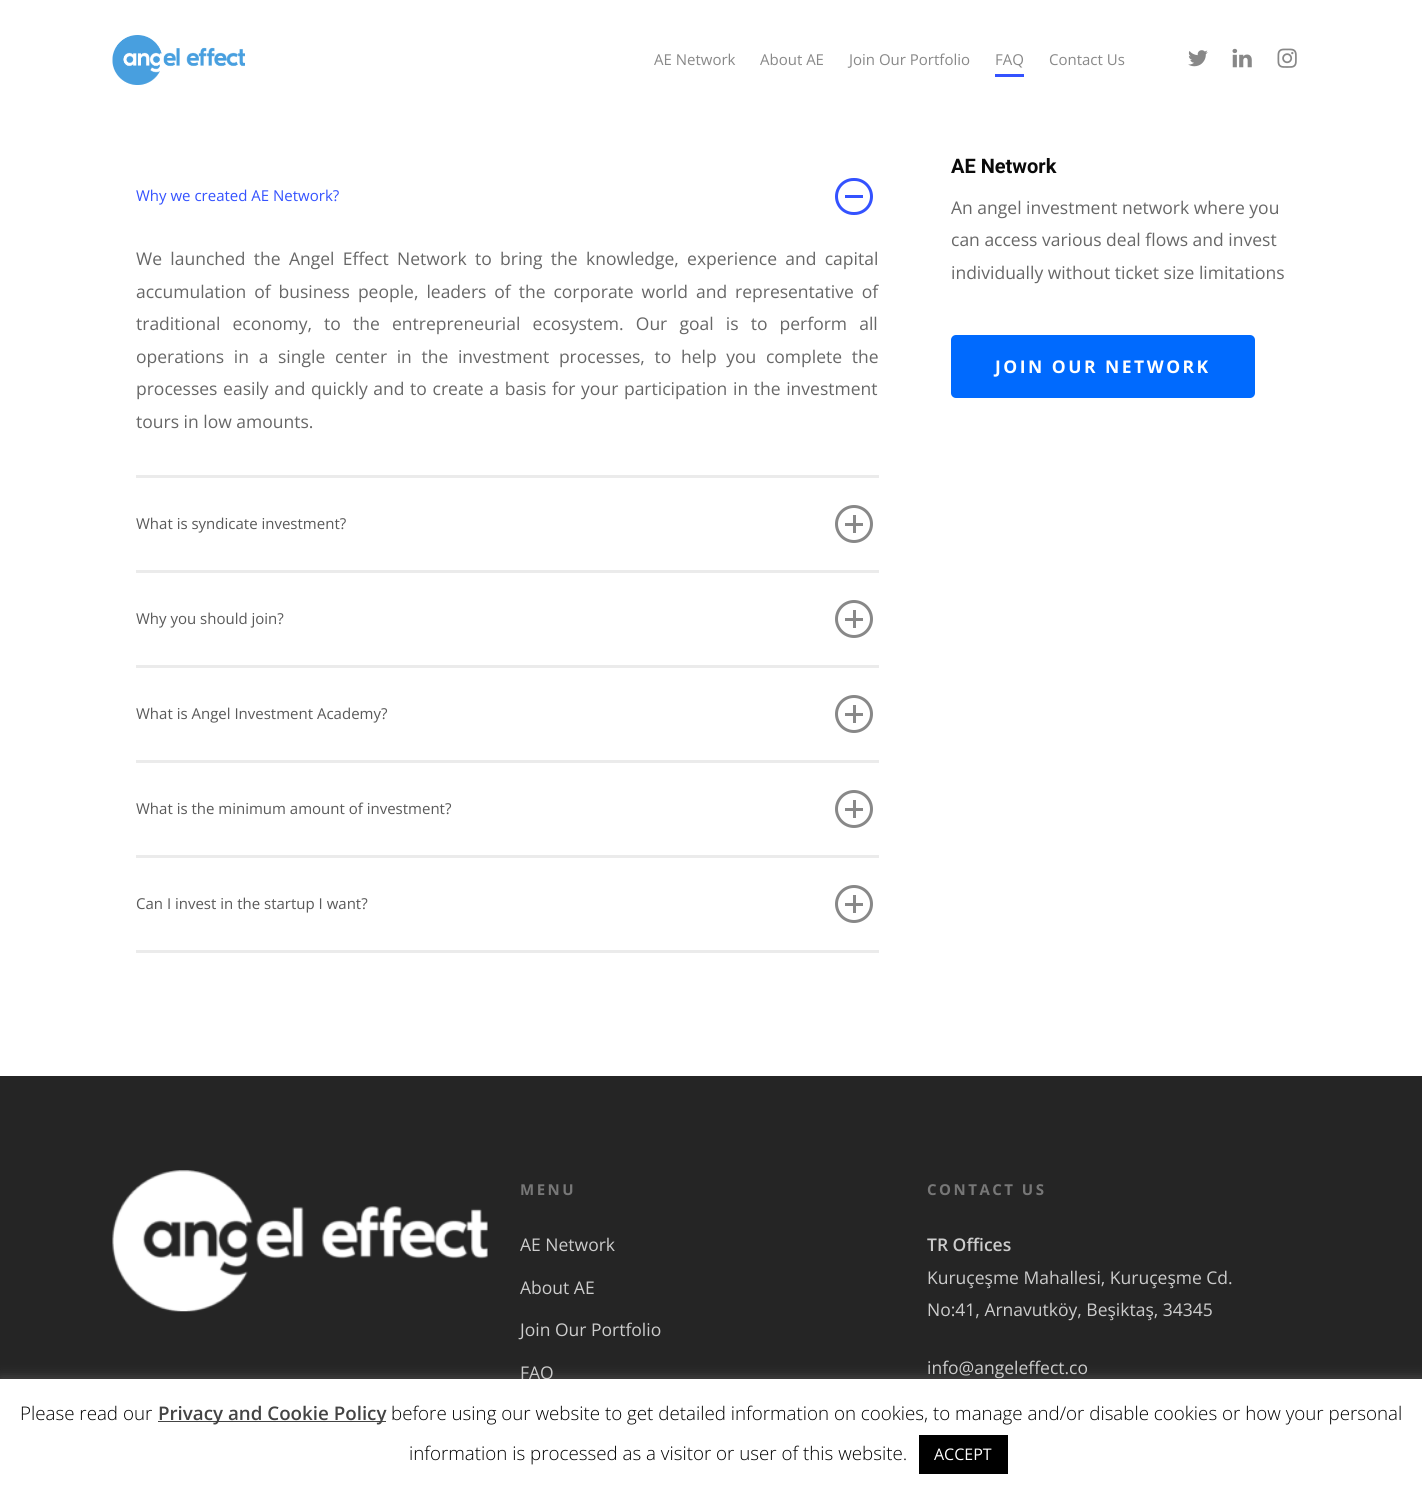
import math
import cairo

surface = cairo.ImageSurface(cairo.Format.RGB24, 1422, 1494)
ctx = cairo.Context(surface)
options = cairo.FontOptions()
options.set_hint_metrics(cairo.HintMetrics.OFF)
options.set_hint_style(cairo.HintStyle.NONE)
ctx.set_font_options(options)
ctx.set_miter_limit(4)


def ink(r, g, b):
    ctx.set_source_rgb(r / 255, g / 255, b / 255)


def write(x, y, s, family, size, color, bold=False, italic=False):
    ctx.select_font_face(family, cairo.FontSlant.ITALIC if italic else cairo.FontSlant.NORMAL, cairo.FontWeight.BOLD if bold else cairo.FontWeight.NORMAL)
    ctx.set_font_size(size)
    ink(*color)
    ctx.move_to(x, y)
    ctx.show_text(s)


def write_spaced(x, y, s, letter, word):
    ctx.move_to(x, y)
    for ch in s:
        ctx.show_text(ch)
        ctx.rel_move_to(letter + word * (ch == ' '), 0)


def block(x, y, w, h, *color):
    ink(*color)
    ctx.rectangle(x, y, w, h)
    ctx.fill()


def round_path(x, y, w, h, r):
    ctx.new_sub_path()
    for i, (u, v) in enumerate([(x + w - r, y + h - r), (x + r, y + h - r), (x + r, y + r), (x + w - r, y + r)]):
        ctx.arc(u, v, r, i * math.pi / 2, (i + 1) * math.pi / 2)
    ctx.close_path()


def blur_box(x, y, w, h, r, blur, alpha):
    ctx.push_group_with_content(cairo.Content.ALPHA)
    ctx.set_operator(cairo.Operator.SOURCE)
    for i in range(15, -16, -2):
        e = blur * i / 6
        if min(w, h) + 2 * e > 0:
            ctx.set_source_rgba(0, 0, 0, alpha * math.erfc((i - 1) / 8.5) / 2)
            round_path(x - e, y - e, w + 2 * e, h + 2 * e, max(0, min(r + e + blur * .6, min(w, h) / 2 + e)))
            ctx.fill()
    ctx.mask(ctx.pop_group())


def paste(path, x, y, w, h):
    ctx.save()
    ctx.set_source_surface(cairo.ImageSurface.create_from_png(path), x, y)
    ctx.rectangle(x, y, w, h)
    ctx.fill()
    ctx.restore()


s1 = dict(family="Open Sans", size=15, color=(136, 136, 136))
s2 = dict(family="Open Sans", size=15, color=(52, 82, 255))
s3 = dict(family="Open Sans", size=17.5, color=(103, 103, 103))
s4 = dict(family="Open Sans", size=15, color=(89, 89, 89))
s5 = dict(family="Roboto", size=20, color=(10, 10, 10), bold=True)
s6 = dict(family="Open Sans", size=17.5, color=(204, 204, 204))
s7 = dict(family="Open Sans SemiBold", size=17.5, color=(204, 204, 204))
s8 = dict(family="Open Sans Light", size=18.75, color=(0, 0, 0))
s9 = dict(family="Open Sans SemiBold", size=18.75, color=(68, 68, 68))
s10 = dict(family="Open Sans", size=16, color=(255, 255, 255))

ink(255, 255, 255)
ctx.paint()
paste("pic1.png", 112, 35, 133, 50)
write(654, 65, "AE Network", **s1)
write(760, 65, "About AE", **s1)
write(849, 65, "Join Our Portfolio", **s1)
write(995, 65, "FAQ", **s1)
block(995, 74, 29, 3, 52, 82, 255)
write(1049, 65, "Contact Us", **s1)
paste("pic2.png", 1188, 50, 20, 17)
paste("pic3.png", 1232, 48, 20, 20)
paste("pic4.png", 1277, 48, 20, 20)
block(136, 475, 743, 3, 235, 235, 235)
write(136, 201, "Why we created AE Network?", **s2)
round_path(836.5, 179.5, 35, 34, 17)
ctx.set_line_width(3)
ctx.stroke()
block(845, 195, 18, 3, 52, 82, 255)
ctx.set_font_size(17.5)
ink(103, 103, 103)
write_spaced(136, 265, "We launched the Angel Effect Network to bring the knowledge, experience and capital", 0, 3.75)
write_spaced(136, 298, "accumulation of business people, leaders of the corporate world and representative of", 0, 3.4)
write_spaced(136, 330, "traditional economy, to the entrepreneurial ecosystem. Our goal is to perform all", 0, 7.6)
write_spaced(136, 363, "operations in a single center in the investment processes, to help you complete the", 0, 5.1)
write_spaced(136, 395, "processes easily and quickly and to create a basis for your participation in the investment", 0, 1.1)
write(136, 428, "tours in low amounts.", **s3)
block(136, 570, 743, 3, 235, 235, 235)
write(136, 529, "What is syndicate investment?", **s4)
ctx.new_path()
ctx.arc(854, 524, 17.5, 0, 2 * math.pi)
ink(136, 136, 136)
ctx.stroke()
block(845, 523, 18, 3, 136, 136, 136)
block(853, 515, 3, 18, 136, 136, 136)
block(136, 665, 743, 3, 235, 235, 235)
write(136, 624, "Why you should join?", **s4)
ctx.new_path()
ctx.arc(854, 619, 17.5, 0, 2 * math.pi)
ink(136, 136, 136)
ctx.stroke()
block(845, 618, 18, 3, 136, 136, 136)
block(853, 610, 3, 18, 136, 136, 136)
block(136, 760, 743, 3, 235, 235, 235)
write(136, 719, "What is Angel Investment Academy?", **s4)
ctx.new_path()
ctx.arc(854, 714, 17.5, 0, 2 * math.pi)
ink(136, 136, 136)
ctx.stroke()
block(845, 713, 18, 3, 136, 136, 136)
block(853, 705, 3, 18, 136, 136, 136)
block(136, 855, 743, 3, 235, 235, 235)
write(136, 814, "What is the minimum amount of investment?", **s4)
ctx.new_path()
ctx.arc(854, 809, 17.5, 0, 2 * math.pi)
ink(136, 136, 136)
ctx.stroke()
block(845, 808, 18, 3, 136, 136, 136)
block(853, 800, 3, 18, 136, 136, 136)
block(136, 950, 743, 3, 235, 235, 235)
write(136, 909, "Can I invest in the startup I want?", **s4)
ctx.new_path()
ctx.arc(854, 904, 17.5, 0, 2 * math.pi)
ink(136, 136, 136)
ctx.stroke()
block(845, 903, 18, 3, 136, 136, 136)
block(853, 895, 3, 18, 136, 136, 136)
write(951, 173, "AE Network", **s5)
write(951, 214, "An angel investment network where you", **s3)
write(951, 246, "can access various deal flows and invest", **s3)
write(951, 279, "individually without ticket size limitations", **s3)
ink(0, 106, 254)
round_path(951, 335, 304, 63, 5)
ctx.fill()
ctx.select_font_face("Open Sans", cairo.FontSlant.NORMAL, cairo.FontWeight.BOLD)
ink(255, 255, 255)
write_spaced(995, 373, "JOIN OUR NETWORK", 2.5, 0)
block(0, 1076, 1422, 303, 37, 37, 37)
paste("pic5.png", 112, 1170, 376, 142)
ctx.set_font_size(15)
ink(119, 119, 119)
write_spaced(520, 1195, "MENU", 2.5, 0)
write(520, 1251, "AE Network", **s6)
write(520, 1294, "About AE", **s6)
write(520, 1336, "Join Our Portfolio", **s6)
write(520, 1379, "FAQ", **s6)
ctx.select_font_face("Open Sans", cairo.FontSlant.NORMAL, cairo.FontWeight.BOLD)
ctx.set_font_size(15)
ink(119, 119, 119)
write_spaced(927, 1195, "CONTACT US", 2.5, 0)
write(927, 1251, "TR Offices", **s7)
write(927, 1284, "Kuruçeşme Mahallesi, Kuruçeşme Cd.", **s6)
write(927, 1316, "No:41, Arnavutköy, Beşiktaş, 34345", **s6)
write(927, 1374, "info@angeleffect.co", **s6)
ink(172, 171, 171)
blur_box(0, 1378, 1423, 116, 0, 6, 0.3)
block(0, 1379, 1422, 115, 255, 255, 255)
write(20, 1420, "Please read our", **s8)
block(158, 1421, 228, 1, 68, 68, 68)
write(158, 1420, "Privacy and Cookie Policy", **s9)
write(391, 1420, "before using our website to get detailed information on cookies, to manage and/or disable cookies or how your personal", **s8)
write(409, 1460, "information is processed as a visitor or user of this website.", **s8)
block(919, 1435, 89, 39, 0, 0, 0)
write(934, 1460, "ACCEPT", **s10)
surface.write_to_png("screenshot.png")
